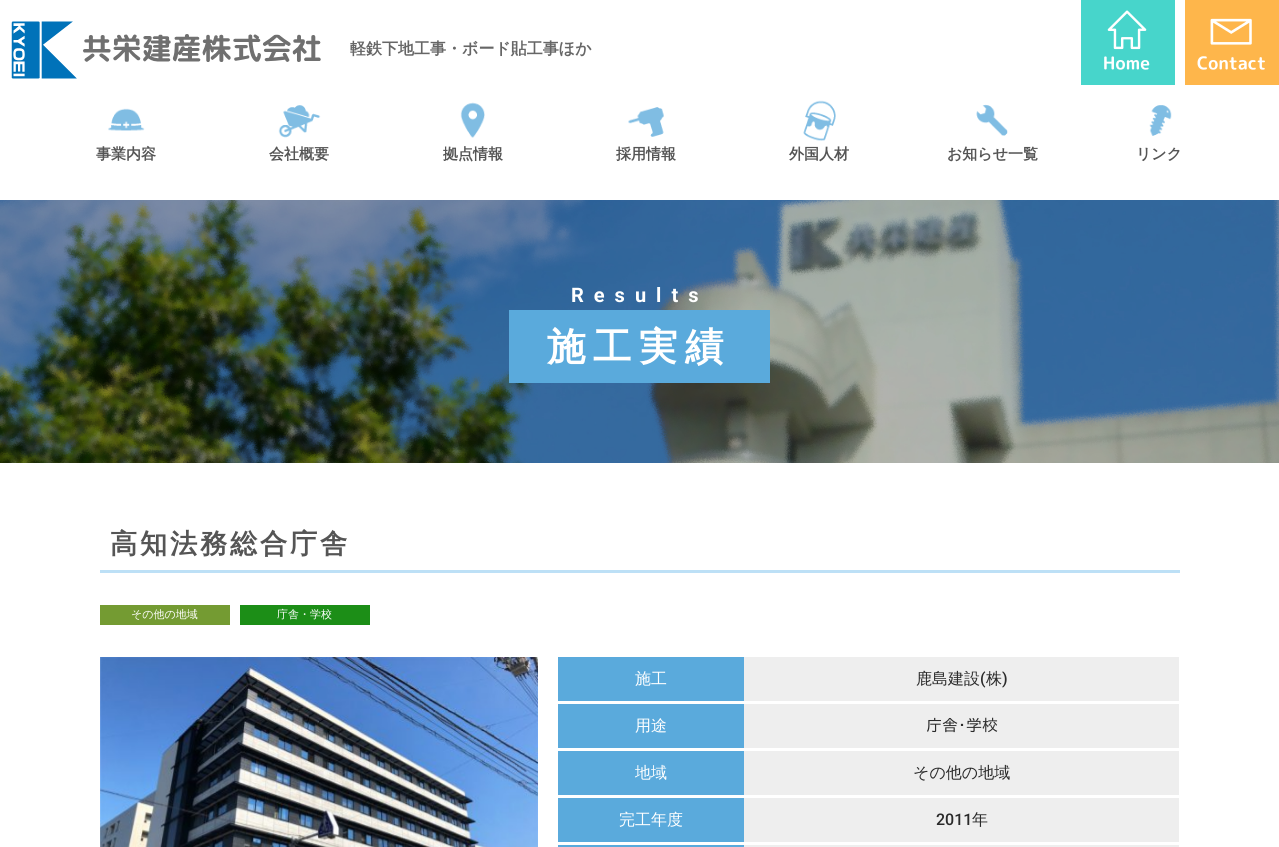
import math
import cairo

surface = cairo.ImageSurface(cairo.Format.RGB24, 1279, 847)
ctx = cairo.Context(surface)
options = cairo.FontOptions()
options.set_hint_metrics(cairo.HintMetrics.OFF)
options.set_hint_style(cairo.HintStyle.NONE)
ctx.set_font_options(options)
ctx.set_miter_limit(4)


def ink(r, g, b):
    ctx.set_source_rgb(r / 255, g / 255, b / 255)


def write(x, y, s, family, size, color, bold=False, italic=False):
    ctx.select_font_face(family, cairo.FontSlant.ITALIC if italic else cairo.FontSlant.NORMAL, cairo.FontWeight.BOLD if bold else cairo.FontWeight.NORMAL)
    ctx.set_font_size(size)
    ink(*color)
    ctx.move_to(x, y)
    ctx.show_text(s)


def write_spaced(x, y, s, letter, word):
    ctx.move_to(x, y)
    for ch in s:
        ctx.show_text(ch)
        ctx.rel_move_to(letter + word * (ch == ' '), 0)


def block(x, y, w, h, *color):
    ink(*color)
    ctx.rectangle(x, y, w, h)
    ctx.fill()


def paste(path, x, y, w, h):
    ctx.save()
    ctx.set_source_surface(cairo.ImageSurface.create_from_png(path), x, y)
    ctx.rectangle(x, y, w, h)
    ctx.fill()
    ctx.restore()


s1 = dict(family="WenQuanYi Zen Hei", size=16, color=(102, 102, 102), bold=True)
s2 = dict(family="WenQuanYi Zen Hei", size=15, color=(85, 85, 85), bold=True)
s3 = dict(family="WenQuanYi Zen Hei Medium", size=11, color=(255, 255, 255))
s4 = dict(family="WenQuanYi Zen Hei Medium", size=16, color=(255, 255, 255))
s5 = dict(family="WenQuanYi Zen Hei Medium", size=16, color=(42, 42, 42))
s6 = dict(family="Roboto Medium", size=16, color=(42, 42, 42))
s7 = dict(family="IPAPGothic", size=16, color=(42, 42, 42))

ink(255, 255, 255)
ctx.paint()
paste("pic1.png", 11, 21, 310, 58)
write(350, 54, "軽鉄下地工事・ボード貼工事ほか", **s1)
paste("pic2.png", 1081, 0, 94, 85)
paste("pic3.png", 1185, 0, 94, 85)
paste("pic4.png", 108, 108, 37, 23)
write(96, 159, "事業内容", **s2)
paste("pic5.png", 278, 105, 43, 33)
write(269, 159, "会社概要", **s2)
paste("pic6.png", 460, 102, 25, 36)
write(443, 159, "拠点情報", **s2)
paste("pic7.png", 628, 107, 36, 30)
write(616, 159, "採用情報", **s2)
paste("pic8.png", 803, 100, 33, 41)
write(789, 159, "外国人材", **s2)
paste("pic9.png", 976, 104, 32, 32)
write(947, 159, "お知らせ一覧", **s2)
paste("pic10.png", 1149, 105, 23, 31)
write(1136, 159, "リンク", **s2)
paste("pic11.png", 0, 200, 1279, 263)
ctx.select_font_face("Roboto", cairo.FontSlant.NORMAL, cairo.FontWeight.BOLD)
ctx.set_font_size(20)
ink(255, 255, 255)
write_spaced(571, 302, "Results", 10, 0)
block(509, 310, 261, 73, 90, 170, 220)
ctx.select_font_face("WenQuanYi Zen Hei", cairo.FontSlant.NORMAL, cairo.FontWeight.BOLD)
ctx.set_font_size(38.5)
ink(255, 255, 255)
write_spaced(547, 360, "施工実績", 7.5, 0)
block(100, 570, 1080, 3, 189, 224, 246)
ctx.set_font_size(27.25)
ink(85, 85, 85)
write_spaced(110, 553, "高知法務総合庁舎", 2.75, 0)
block(100, 605, 130, 20, 116, 155, 50)
write(131, 618, "その他の地域", **s3)
block(240, 605, 130, 20, 28, 142, 23)
write(277, 618, "庁舎・学校", **s3)
paste("pic12.png", 100, 657, 438, 190)
block(558, 657, 186, 44, 90, 170, 220)
write(635, 684, "施工", **s4)
block(744, 657, 435, 44, 238, 238, 238)
write(916, 684, "鹿島建設", **s5)
write(980, 684, "(", **s6)
write(986, 684, "株", **s5)
write(1002, 684, ")", **s6)
block(558, 704, 186, 44, 90, 170, 220)
write(635, 731, "用途", **s4)
block(744, 704, 435, 44, 238, 238, 238)
write(926, 731, "庁舎･学校", **s7)
block(558, 751, 186, 44, 90, 170, 220)
write(635, 778, "地域", **s4)
block(744, 751, 435, 44, 238, 238, 238)
write(913, 778, "その他の地域", **s5)
block(558, 798, 186, 44, 90, 170, 220)
write(619, 825, "完工年度", **s4)
block(744, 798, 435, 44, 238, 238, 238)
write(936, 825, "2011", **s6)
write(972, 825, "年", **s5)
block(558, 845, 186, 2, 90, 170, 220)
block(744, 845, 435, 2, 238, 238, 238)
surface.write_to_png("screenshot.png")
